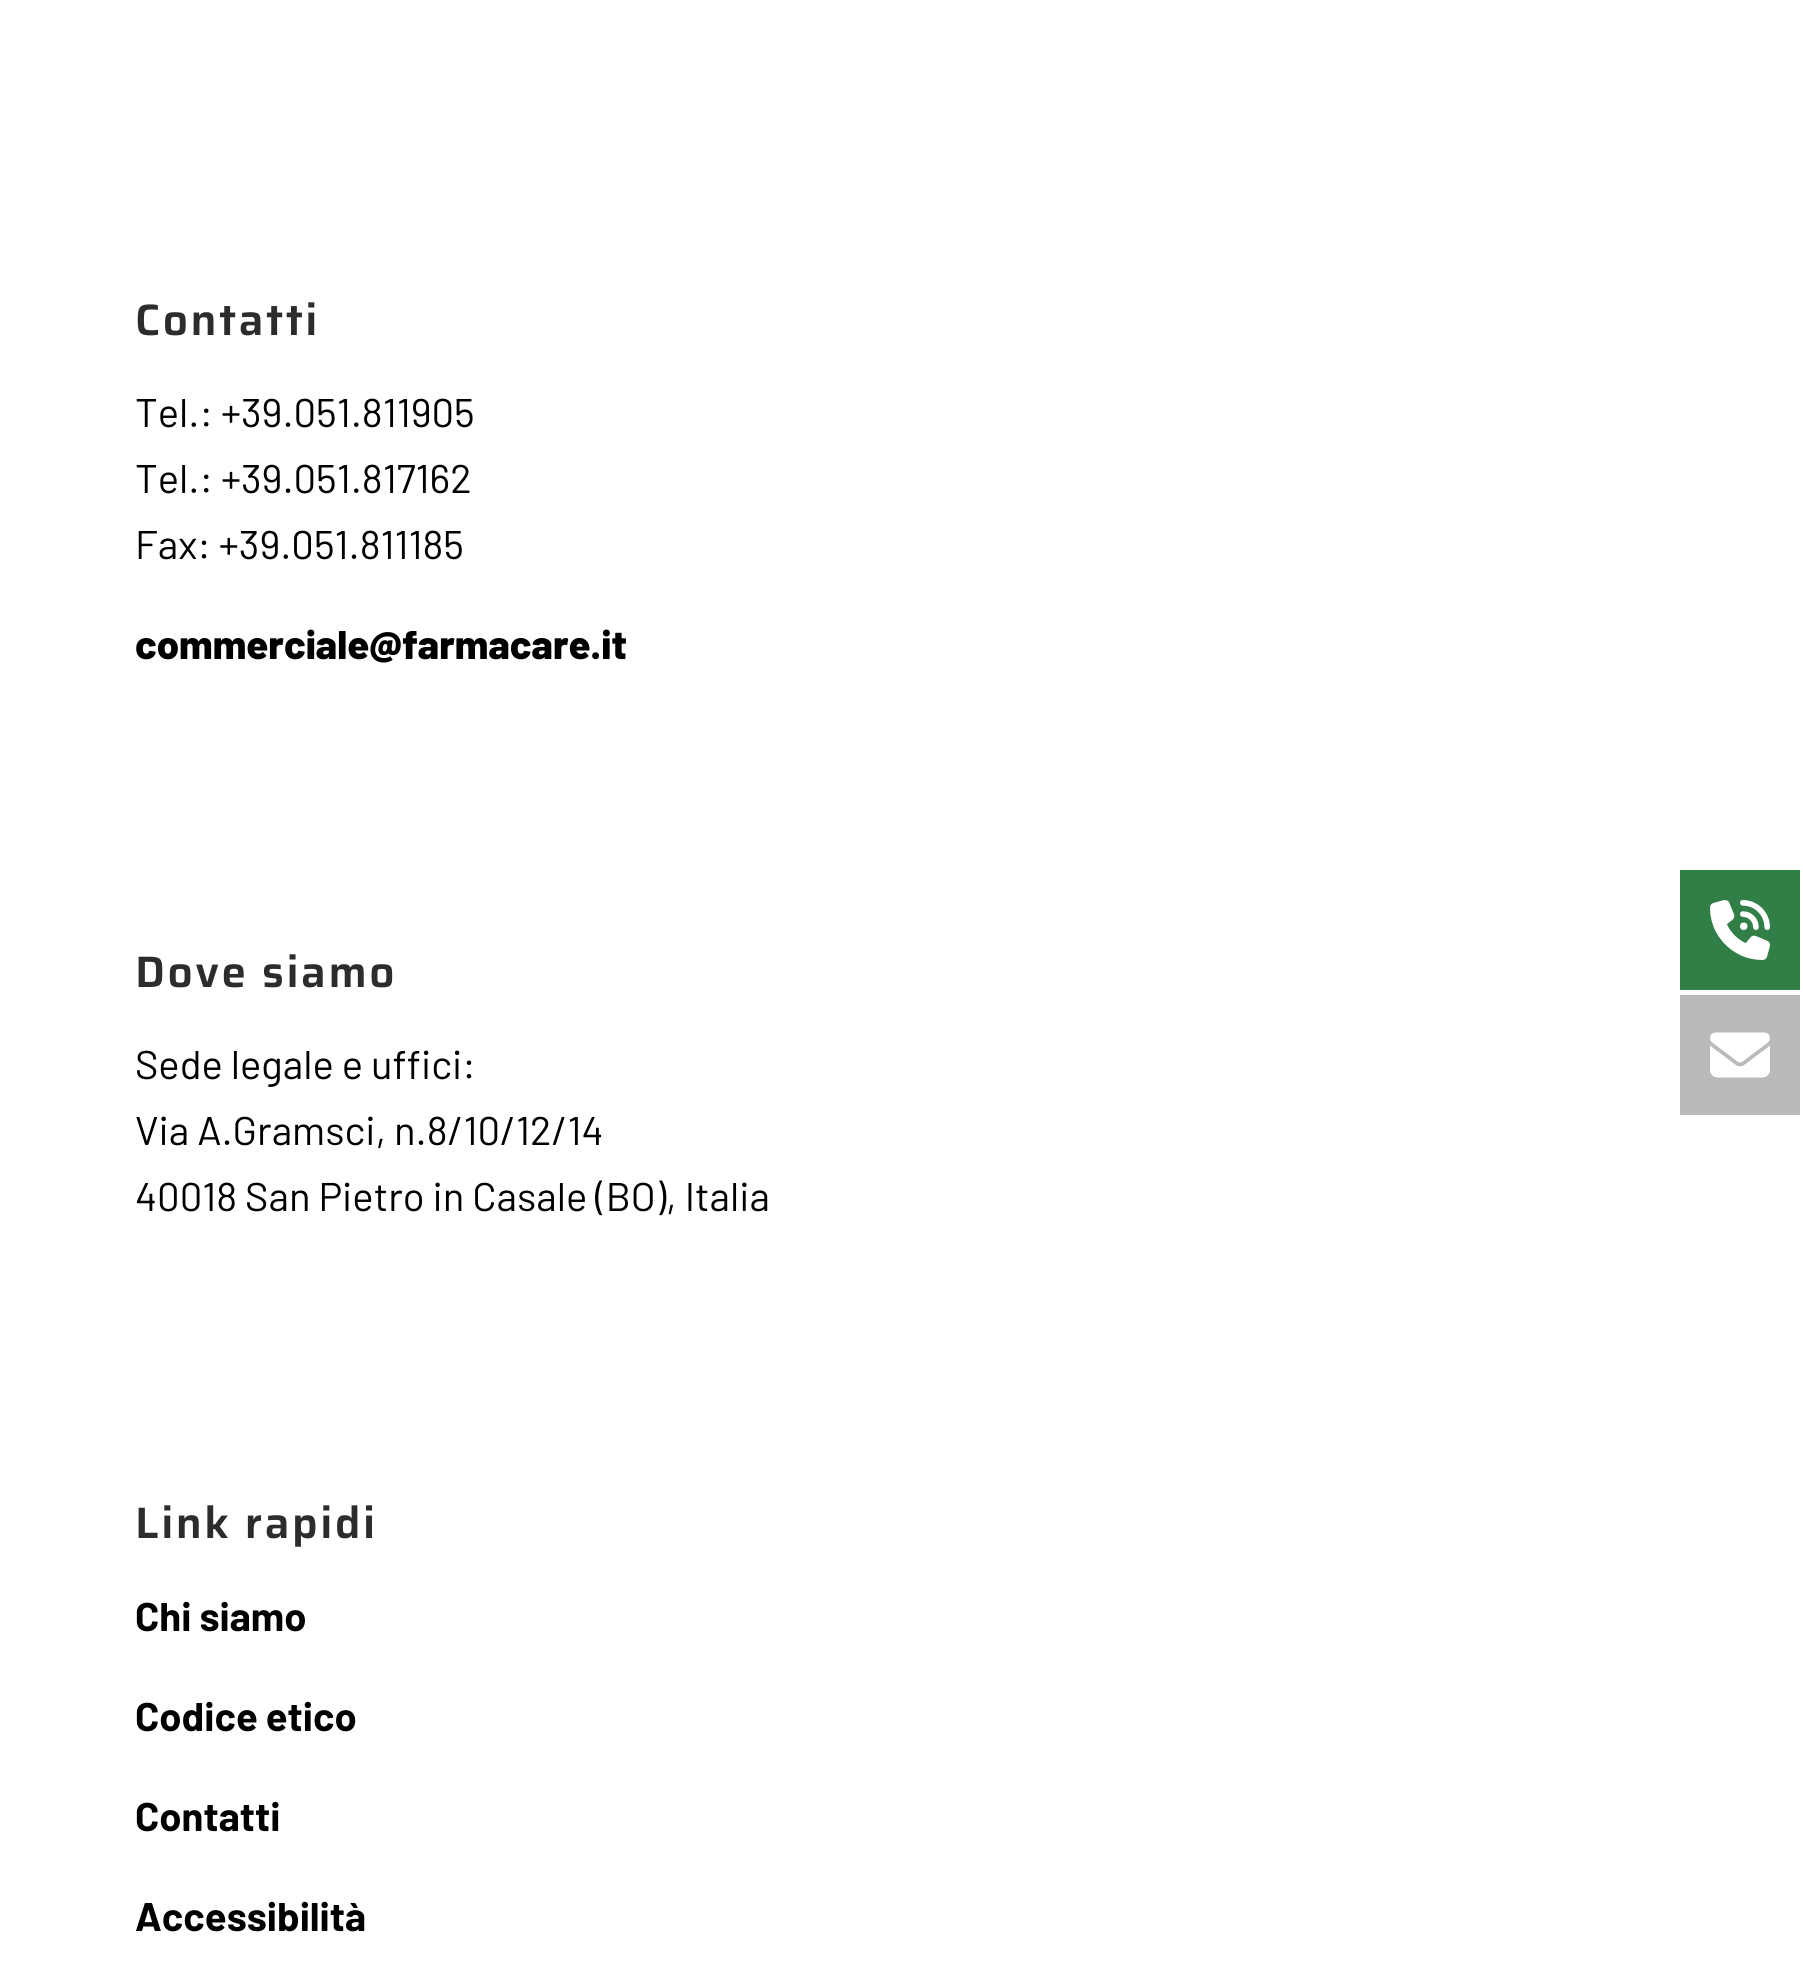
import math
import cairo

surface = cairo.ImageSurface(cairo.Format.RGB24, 1803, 1977)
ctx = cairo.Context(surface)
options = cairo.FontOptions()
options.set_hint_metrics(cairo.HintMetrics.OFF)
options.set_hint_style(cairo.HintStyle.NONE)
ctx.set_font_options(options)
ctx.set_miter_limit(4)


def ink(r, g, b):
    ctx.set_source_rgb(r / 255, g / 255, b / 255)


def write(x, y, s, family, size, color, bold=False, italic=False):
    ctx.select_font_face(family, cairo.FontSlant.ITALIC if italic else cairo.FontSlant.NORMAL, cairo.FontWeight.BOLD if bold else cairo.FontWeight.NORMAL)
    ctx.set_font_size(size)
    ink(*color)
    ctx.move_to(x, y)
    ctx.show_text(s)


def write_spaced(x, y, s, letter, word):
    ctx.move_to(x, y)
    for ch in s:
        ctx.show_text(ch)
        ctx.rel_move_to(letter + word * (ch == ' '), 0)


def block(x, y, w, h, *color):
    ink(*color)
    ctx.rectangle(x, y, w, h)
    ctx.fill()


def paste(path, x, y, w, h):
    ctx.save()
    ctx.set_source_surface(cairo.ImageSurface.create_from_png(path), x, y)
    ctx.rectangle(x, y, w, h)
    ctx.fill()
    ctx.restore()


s1 = dict(family="Barlow", size=40, color=(0, 0, 0))
s2 = dict(family="Barlow ExtraBold", size=40, color=(0, 0, 0))
s3 = dict(family="Barlow", size=40, color=(0, 0, 0), bold=True)

ink(255, 255, 255)
ctx.paint()
ctx.select_font_face("Saira SemiBold")
ctx.set_font_size(44)
ink(44, 44, 44)
write_spaced(135, 335, "Contatti", 2.5, 0)
write(135, 427, "Tel.: +39.051.811905", **s1)
write(135, 493, "Tel.: +39.051.817162", **s1)
write(135, 559, "Fax: +39.051.811185", **s1)
write(135, 659, "commerciale@farmacare.it", **s2)
ctx.select_font_face("Saira SemiBold")
ctx.set_font_size(44)
ink(44, 44, 44)
write_spaced(135, 987, "Dove siamo", 2.5, 0)
write(135, 1079, "Sede legale e uffici:", **s1)
write(135, 1145, "Via A.Gramsci, n.8/10/12/14", **s1)
write(135, 1211, "40018 San Pietro in Casale (BO), Italia", **s1)
ctx.select_font_face("Saira SemiBold")
ctx.set_font_size(44)
ink(44, 44, 44)
write_spaced(135, 1538, "Link rapidi", 2.5, 0)
write(135, 1631, "Chi siamo", **s3)
write(135, 1731, "Codice etico", **s3)
write(135, 1831, "Contatti", **s3)
write(135, 1931, "Accessibilità", **s3)
block(1680, 870, 120, 120, 50, 126, 71)
paste("pic1.png", 1710, 900, 60, 60)
block(1680, 995, 120, 120, 186, 186, 186)
paste("pic2.png", 1710, 1032, 60, 46)
surface.write_to_png("screenshot.png")
